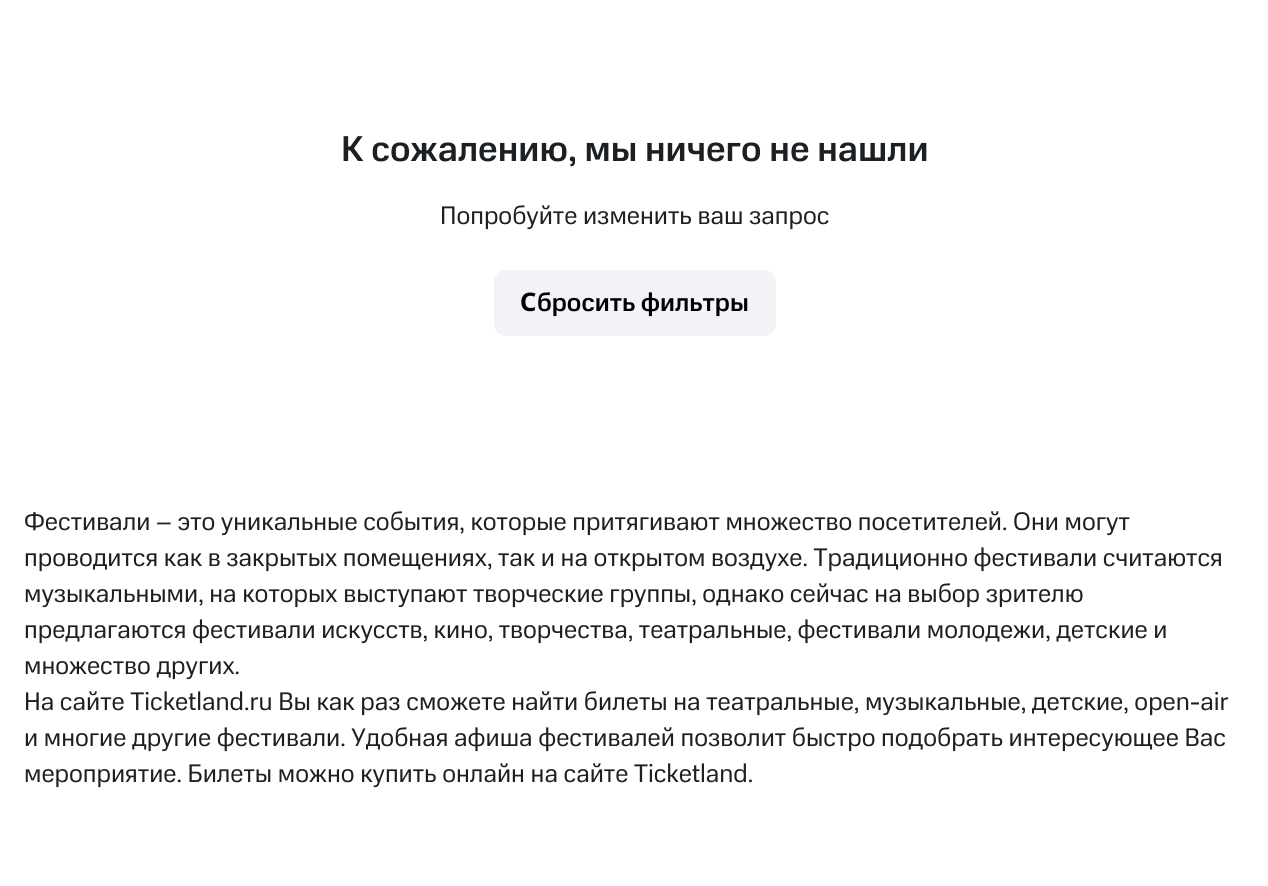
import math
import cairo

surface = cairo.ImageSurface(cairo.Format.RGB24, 1268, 886)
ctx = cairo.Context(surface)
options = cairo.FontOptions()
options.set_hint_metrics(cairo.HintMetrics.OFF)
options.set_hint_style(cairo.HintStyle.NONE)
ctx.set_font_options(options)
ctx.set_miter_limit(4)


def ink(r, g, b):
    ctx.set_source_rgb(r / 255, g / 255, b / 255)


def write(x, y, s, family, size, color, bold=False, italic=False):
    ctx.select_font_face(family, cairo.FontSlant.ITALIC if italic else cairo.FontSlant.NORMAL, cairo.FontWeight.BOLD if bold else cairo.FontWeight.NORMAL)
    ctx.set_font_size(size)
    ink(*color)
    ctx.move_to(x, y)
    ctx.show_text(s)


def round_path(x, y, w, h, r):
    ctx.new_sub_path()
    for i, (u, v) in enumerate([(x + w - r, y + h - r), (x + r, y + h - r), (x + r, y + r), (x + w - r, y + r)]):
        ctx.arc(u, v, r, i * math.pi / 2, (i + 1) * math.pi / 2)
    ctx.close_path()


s1 = dict(family="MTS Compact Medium", size=36, color=(29, 32, 35))
s2 = dict(family="MTS Compact", size=25.5, color=(29, 32, 35))
s3 = dict(family="Noto Sans", size=25.5, color=(0, 0, 0), bold=True)
s4 = dict(family="MTS Compact Medium", size=25.5, color=(0, 0, 0))

ink(255, 255, 255)
ctx.paint()
write(341, 161, "К сожалению, мы ничего не нашли", **s1)
write(440, 224, "Попробуйте изменить ваш запрос", **s2)
ink(242, 243, 247)
round_path(494, 270, 282, 66, 12)
ctx.fill()
write(520, 311, "С", **s3)
write(537, 311, "бросить фильтры", **s4)
write(24, 530, "Фестивали – это уникальные события, которые притягивают множество посетителей. Они могут", **s2)
write(24, 566, "проводится как в закрытых помещениях, так и на открытом воздухе. Традиционно фестивали считаются", **s2)
write(24, 602, "музыкальными, на которых выступают творческие группы, однако сейчас на выбор зрителю", **s2)
write(24, 638, "предлагаются фестивали искусств, кино, творчества, театральные, фестивали молодежи, детские и", **s2)
write(24, 674, "множество других.", **s2)
write(24, 710, "На сайте Ticketland.ru Вы как раз сможете найти билеты на театральные, музыкальные, детские, open-air", **s2)
write(24, 746, "и многие другие фестивали. Удобная афиша фестивалей позволит быстро подобрать интересующее Вас", **s2)
write(24, 782, "мероприятие. Билеты можно купить онлайн на сайте Ticketland.", **s2)
surface.write_to_png("screenshot.png")
